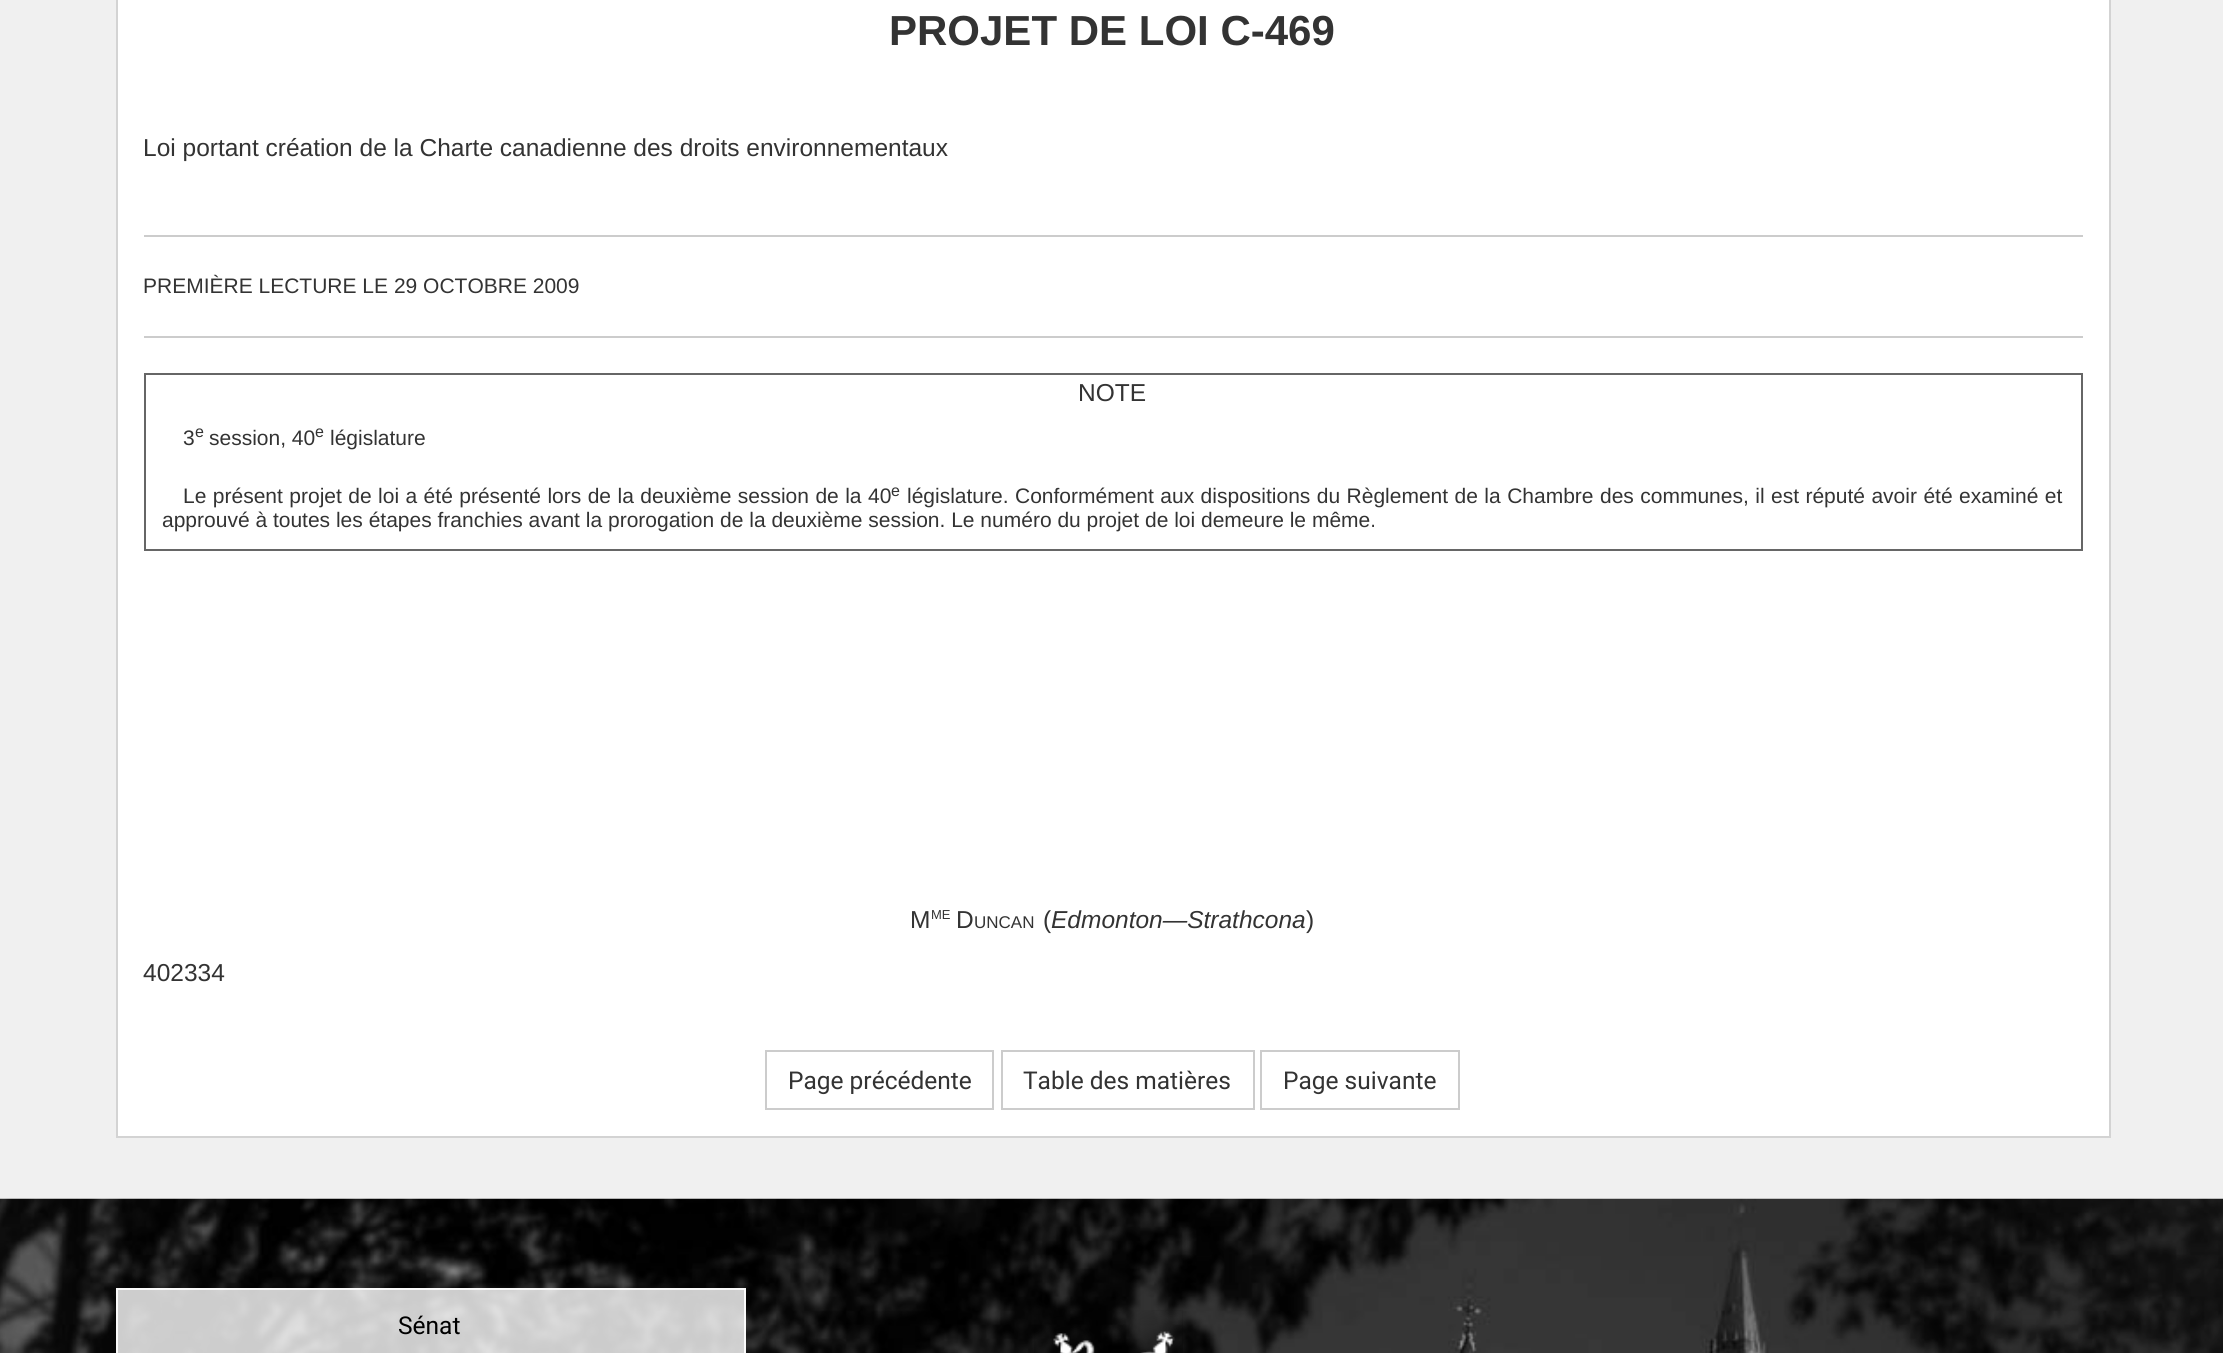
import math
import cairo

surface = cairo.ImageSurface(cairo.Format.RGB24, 2223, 1353)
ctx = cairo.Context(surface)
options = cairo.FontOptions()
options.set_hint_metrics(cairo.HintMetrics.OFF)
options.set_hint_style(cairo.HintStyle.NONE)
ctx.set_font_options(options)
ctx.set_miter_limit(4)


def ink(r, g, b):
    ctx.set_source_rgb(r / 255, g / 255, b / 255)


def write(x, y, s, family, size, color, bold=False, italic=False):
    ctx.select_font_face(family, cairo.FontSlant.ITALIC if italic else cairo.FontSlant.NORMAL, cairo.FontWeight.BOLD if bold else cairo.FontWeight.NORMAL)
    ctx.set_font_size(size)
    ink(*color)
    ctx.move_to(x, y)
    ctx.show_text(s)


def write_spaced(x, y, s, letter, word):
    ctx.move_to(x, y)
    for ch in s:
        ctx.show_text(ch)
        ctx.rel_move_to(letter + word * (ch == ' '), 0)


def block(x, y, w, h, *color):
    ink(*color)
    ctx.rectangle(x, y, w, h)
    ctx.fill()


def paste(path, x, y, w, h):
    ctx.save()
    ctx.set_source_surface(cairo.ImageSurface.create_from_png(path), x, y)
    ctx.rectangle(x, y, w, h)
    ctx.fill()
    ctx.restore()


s1 = dict(family="Liberation Sans", size=42, color=(51, 51, 51), bold=True)
s2 = dict(family="Liberation Sans", size=24.5, color=(51, 51, 51))
s3 = dict(family="Liberation Sans", size=21, color=(51, 51, 51))
s4 = dict(family="Liberation Sans", size=16, color=(51, 51, 51))
s5 = dict(family="Liberation Sans", size=13, color=(51, 51, 51))
s6 = dict(family="Liberation Sans", size=17, color=(51, 51, 51))
s7 = dict(family="Liberation Sans", size=24.5, color=(51, 51, 51), italic=True)
s8 = dict(family="Roboto", size=24.5, color=(51, 51, 51))
s9 = dict(family="Roboto", size=24.5, color=(0, 0, 0))

ink(240, 240, 240)
ctx.paint()
ink(255, 255, 255)
ctx.rectangle(117, -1, 1993, 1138)
ctx.fill_preserve()
ink(211, 211, 211)
ctx.stroke()
write(889, 45, "PROJET DE LOI C-469", **s1)
write(143, 156, "Loi portant création de la Charte canadienne des droits environnementaux", **s2)
block(144, 235, 1939, 2, 204, 204, 204)
write(143, 293, "PREMIÈRE LECTURE LE 29 OCTOBRE 2009", **s3)
block(144, 336, 1939, 2, 204, 204, 204)
ctx.rectangle(145, 374, 1937, 176)
ink(102, 102, 102)
ctx.stroke()
write(1078, 401, "NOTE", **s2)
write(183, 445, "3", **s3)
write(195, 437, "e", **s4)
write(209, 445, "session, 40", **s3)
write(315, 437, "e", **s4)
write(330, 445, "législature", **s3)
write_spaced(183, 503, "Le présent projet de loi a été présenté lors de la deuxième session de la 40", 0, 0.6)
write(891, 496, "e", **s4)
ctx.set_font_size(21)
write_spaced(907, 503, "législature. Conformément aux dispositions du Règlement de la Chambre des communes, il est réputé avoir été examiné et", 0, 0.6)
write(162, 527, "approuvé à toutes les étapes franchies avant la prorogation de la deuxième session. Le numéro du projet de loi demeure le même.", **s3)
write(910, 928, "M", **s2)
write(931, 919, "ME", **s5)
write(956, 928, "D", **s2)
write(974, 928, "UNCAN", **s6)
write(1043, 928, "(", **s2)
write(1051, 928, "Edmonton—Strathcona", **s7)
write(1306, 928, ")", **s2)
write(143, 981, "402334", **s2)
ctx.rectangle(766, 1051, 227, 58)
ink(204, 204, 204)
ctx.stroke()
write(788, 1089, "Page précédente", **s8)
ctx.rectangle(1002, 1051, 252, 58)
ink(204, 204, 204)
ctx.stroke()
write(1023, 1089, "Table des matières", **s8)
ctx.rectangle(1261, 1051, 198, 58)
ink(204, 204, 204)
ctx.stroke()
write(1283, 1089, "Page suivante", **s8)
paste("pic1.png", 0, 1198, 2223, 155)
ctx.set_source_rgba(1, 1, 1, 0.8)
ctx.rectangle(116, 1288, 630, 65)
ctx.fill()
ctx.rectangle(117, 1289, 628, 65)
ctx.set_source_rgba(1, 1, 1, 0.9)
ctx.stroke()
write(398, 1334, "Sénat", **s9)
paste("pic2.png", 1034, 1310, 149, 43)
surface.write_to_png("screenshot.png")
